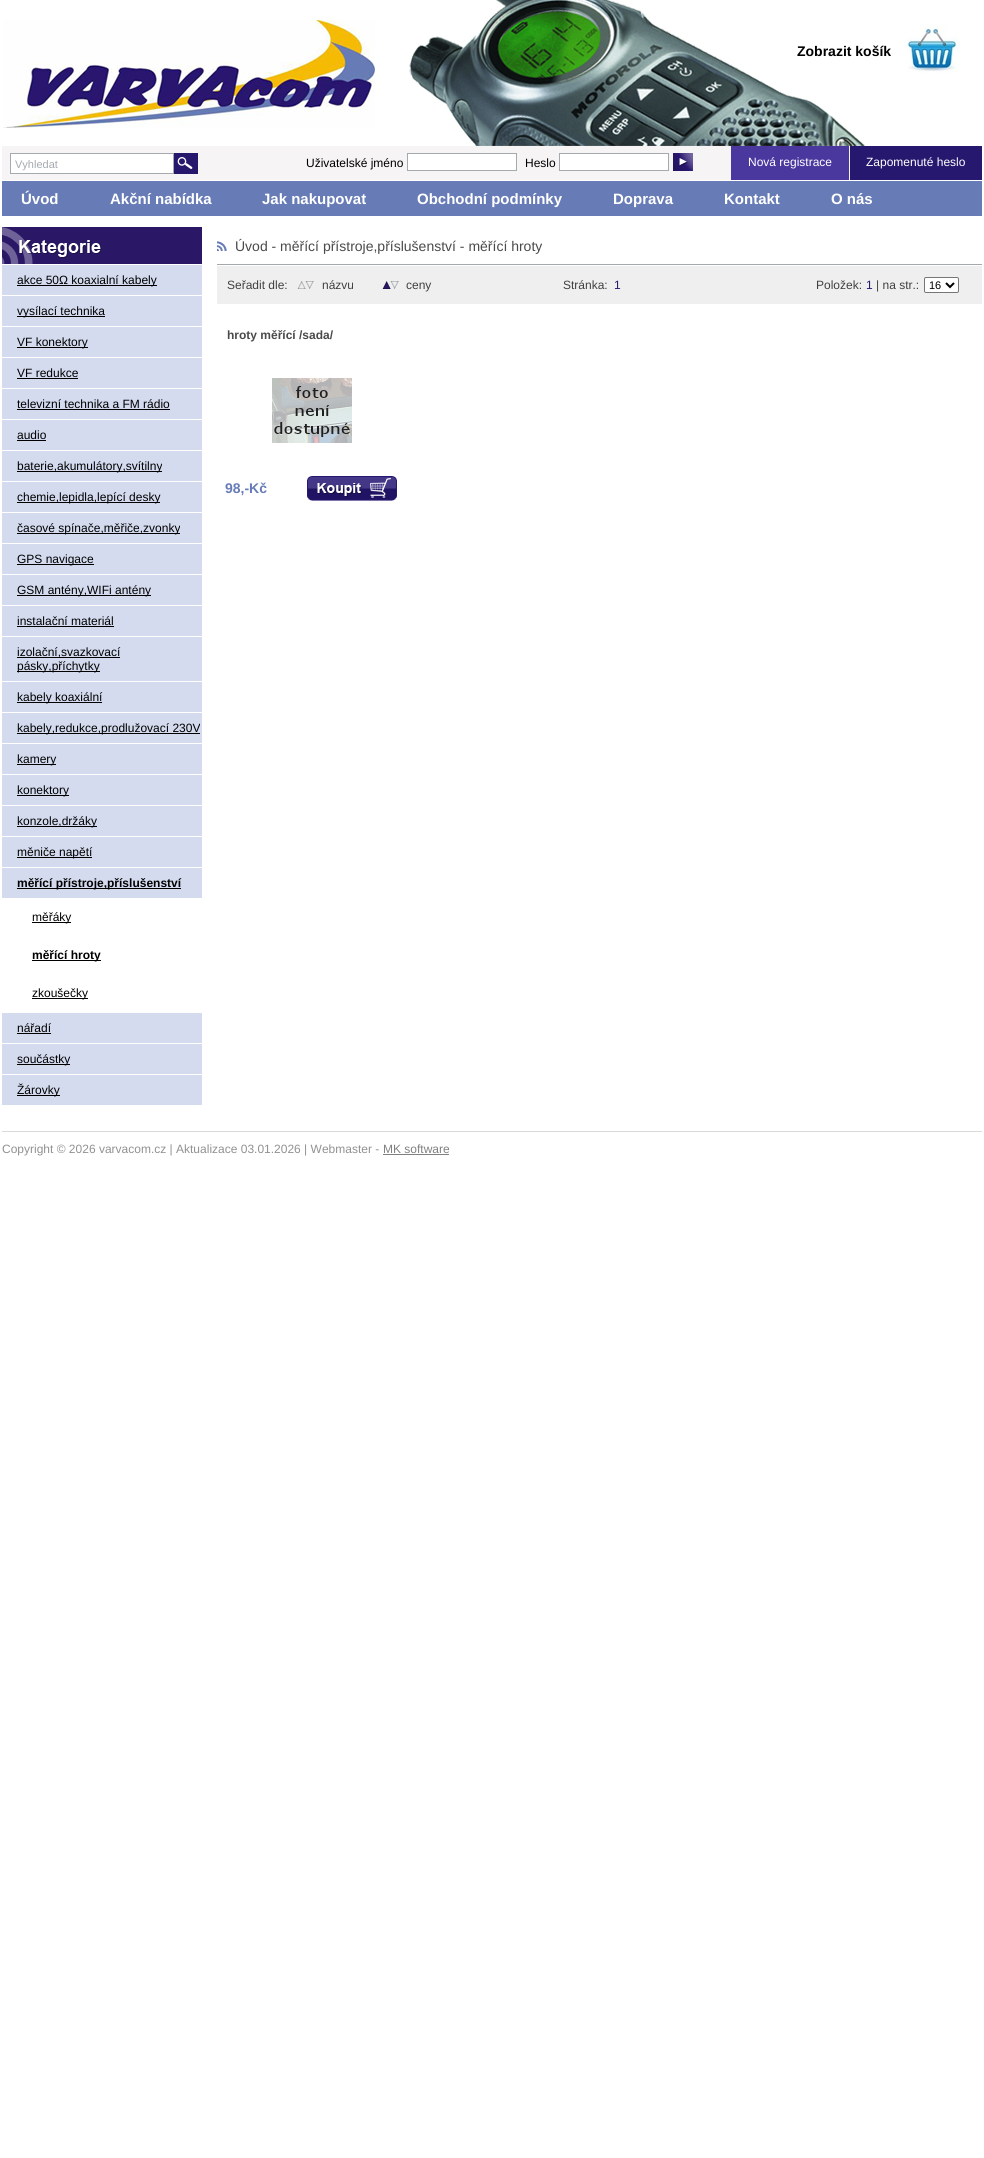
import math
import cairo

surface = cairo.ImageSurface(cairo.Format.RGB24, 984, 2158)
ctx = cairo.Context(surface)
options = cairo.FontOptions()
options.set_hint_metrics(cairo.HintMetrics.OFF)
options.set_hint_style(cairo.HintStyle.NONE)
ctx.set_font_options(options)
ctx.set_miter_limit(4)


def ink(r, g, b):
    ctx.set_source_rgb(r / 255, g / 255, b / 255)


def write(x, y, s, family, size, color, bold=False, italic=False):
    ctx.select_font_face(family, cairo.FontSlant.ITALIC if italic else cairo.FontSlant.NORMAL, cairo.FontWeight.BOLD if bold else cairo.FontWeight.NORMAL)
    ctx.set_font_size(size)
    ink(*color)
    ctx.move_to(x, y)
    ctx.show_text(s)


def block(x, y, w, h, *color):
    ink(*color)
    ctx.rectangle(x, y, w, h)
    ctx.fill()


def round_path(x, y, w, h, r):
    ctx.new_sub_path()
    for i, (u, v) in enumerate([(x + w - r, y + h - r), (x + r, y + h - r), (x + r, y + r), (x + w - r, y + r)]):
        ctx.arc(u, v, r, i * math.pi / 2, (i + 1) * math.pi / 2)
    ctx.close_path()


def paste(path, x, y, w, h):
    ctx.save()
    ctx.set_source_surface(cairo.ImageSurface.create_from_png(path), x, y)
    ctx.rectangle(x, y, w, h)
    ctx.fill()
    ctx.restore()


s1 = dict(family="Liberation Sans", size=14, color=(0, 0, 0), bold=True)
s2 = dict(family="Liberation Sans", size=11, color=(165, 170, 175))
s3 = dict(family="Liberation Sans", size=12, color=(0, 0, 0))
s4 = dict(family="Liberation Sans", size=12, color=(255, 255, 255))
s5 = dict(family="Liberation Sans", size=15, color=(255, 255, 255), bold=True)
s6 = dict(family="Liberation Sans", size=12, color=(0, 0, 0), bold=True)
s7 = dict(family="Liberation Sans", size=14, color=(74, 74, 74))
s8 = dict(family="Liberation Sans", size=12, color=(64, 64, 63))
s9 = dict(family="Liberation Sans", size=12, color=(42, 22, 111))
s10 = dict(family="Liberation Sans", size=11, color=(0, 0, 0))
s11 = dict(family="Liberation Sans", size=12, color=(74, 74, 74), bold=True)
s12 = dict(family="Liberation Sans", size=14, color=(103, 123, 182), bold=True)
s13 = dict(family="Liberation Sans", size=12, color=(145, 145, 147))
s14 = dict(family="Liberation Sans", size=12, color=(128, 128, 128))

ink(255, 255, 255)
ctx.paint()
paste("pic1.png", 3, 0, 862, 146)
write(797, 56, "Zobrazit košík", **s1)
paste("pic2.png", 907, 25, 52, 48)
block(2, 146, 848, 34, 246, 244, 244)
ink(255, 255, 255)
ctx.rectangle(10.5, 153.5, 163, 20)
ctx.fill_preserve()
ink(165, 170, 175)
ctx.set_line_width(1)
ctx.stroke()
write(15, 168, "Vyhledat", **s2)
paste("pic3.png", 174, 153, 24, 21)
write(306, 167, "Uživatelské jméno", **s3)
ink(255, 255, 255)
ctx.rectangle(407.5, 153.5, 109, 17)
ctx.fill_preserve()
ink(164, 169, 174)
ctx.stroke()
write(525, 167, "Heslo", **s3)
ink(255, 255, 255)
ctx.rectangle(559.5, 153.5, 109, 17)
ctx.fill_preserve()
ink(164, 169, 174)
ctx.stroke()
paste("pic4.png", 673, 153, 20, 18)
block(731, 146, 118, 34, 75, 56, 158)
write(748, 166, "Nová registrace", **s4)
block(850, 146, 132, 34, 39, 24, 111)
write(866, 166, "Zapomenuté heslo", **s4)
block(2, 181, 980, 35, 103, 123, 182)
write(21, 204, "Úvod", **s5)
write(110, 204, "Akční nabídka", **s5)
write(262, 204, "Jak nakupovat", **s5)
write(417, 204, "Obchodní podmínky", **s5)
write(613, 204, "Doprava", **s5)
write(724, 204, "Kontakt", **s5)
write(831, 204, "O nás", **s5)
paste("pic5.png", 2, 227, 200, 37)
block(2, 265, 200, 840, 212, 219, 239)
block(17, 285, 140, 1, 0, 0, 0)
write(17, 284, "akce 50Ω koaxialní kabely", **s3)
block(2, 295, 200, 1, 255, 255, 255)
block(17, 316, 88, 1, 0, 0, 0)
write(17, 315, "vysílací technika", **s3)
block(2, 326, 200, 1, 255, 255, 255)
block(17, 347, 71, 1, 0, 0, 0)
write(17, 346, "VF konektory", **s3)
block(2, 357, 200, 1, 255, 255, 255)
write(17, 377, "VF redukce", **s3)
block(17, 378, 61, 1, 0, 0, 0)
block(2, 388, 200, 1, 255, 255, 255)
write(17, 408, "televizní technika a FM rádio", **s3)
block(17, 409, 153, 1, 0, 0, 0)
block(2, 419, 200, 1, 255, 255, 255)
write(17, 439, "audio", **s3)
block(17, 440, 29, 1, 0, 0, 0)
block(2, 450, 200, 1, 255, 255, 255)
block(17, 471, 145, 1, 0, 0, 0)
write(17, 470, "baterie,akumulátory,svítilny", **s3)
block(2, 481, 200, 1, 255, 255, 255)
block(17, 502, 143, 1, 0, 0, 0)
write(17, 501, "chemie,lepidla,lepící desky", **s3)
block(2, 512, 200, 1, 255, 255, 255)
block(17, 533, 163, 1, 0, 0, 0)
write(17, 532, "časové spínače,měřiče,zvonky", **s3)
block(2, 543, 200, 1, 255, 255, 255)
block(17, 564, 77, 1, 0, 0, 0)
write(17, 563, "GPS navigace", **s3)
block(2, 574, 200, 1, 255, 255, 255)
block(17, 595, 134, 1, 0, 0, 0)
write(17, 594, "GSM antény,WIFi antény", **s3)
block(2, 605, 200, 1, 255, 255, 255)
write(17, 625, "instalační materiál", **s3)
block(17, 626, 97, 1, 0, 0, 0)
block(2, 636, 200, 1, 255, 255, 255)
block(17, 657, 103, 1, 0, 0, 0)
write(17, 656, "izolační,svazkovací", **s3)
block(17, 671, 83, 1, 0, 0, 0)
write(17, 670, "pásky,příchytky", **s3)
block(2, 681, 200, 1, 255, 255, 255)
block(17, 702, 85, 1, 0, 0, 0)
write(17, 701, "kabely koaxiální", **s3)
block(2, 712, 200, 1, 255, 255, 255)
block(17, 733, 183, 1, 0, 0, 0)
write(17, 732, "kabely,redukce,prodlužovací 230V", **s3)
block(2, 743, 200, 1, 255, 255, 255)
block(17, 764, 39, 1, 0, 0, 0)
write(17, 763, "kamery", **s3)
block(2, 774, 200, 1, 255, 255, 255)
block(17, 795, 52, 1, 0, 0, 0)
write(17, 794, "konektory", **s3)
block(2, 805, 200, 1, 255, 255, 255)
block(17, 826, 80, 1, 0, 0, 0)
write(17, 825, "konzole,držáky", **s3)
block(2, 836, 200, 1, 255, 255, 255)
block(17, 857, 75, 1, 0, 0, 0)
write(17, 856, "měniče napětí", **s3)
block(2, 867, 200, 1, 255, 255, 255)
block(17, 888, 164, 1, 0, 0, 0)
write(17, 887, "měřící přístroje,příslušenství", **s6)
block(2, 898, 200, 115, 255, 255, 255)
block(32, 922, 39, 1, 0, 0, 0)
write(32, 921, "měřáky", **s3)
block(32, 960, 69, 1, 0, 0, 0)
write(32, 959, "měřící hroty", **s6)
block(32, 998, 56, 1, 0, 0, 0)
write(32, 997, "zkoušečky", **s3)
write(17, 1032, "nářadí", **s3)
block(17, 1033, 34, 1, 0, 0, 0)
block(2, 1043, 200, 1, 255, 255, 255)
block(17, 1064, 53, 1, 0, 0, 0)
write(17, 1063, "součástky", **s3)
block(2, 1074, 200, 1, 255, 255, 255)
block(17, 1095, 43, 1, 0, 0, 0)
write(17, 1094, "Žárovky", **s3)
block(217, 264, 765, 1, 164, 169, 174)
paste("pic6.png", 217, 241, 10, 10)
write(235, 251, "Úvod - měřící přístroje,příslušenství - měřící hroty", **s7)
block(217, 266, 765, 38, 239, 239, 240)
write(227, 289, "Seřadit dle:", **s8)
paste("pic7.png", 297, 281, 17, 8)
write(322, 289, "názvu", **s8)
paste("pic8.png", 382, 281, 17, 8)
write(406, 289, "ceny", **s8)
write(563, 289, "Stránka:", **s8)
write(614, 289, "1", **s9)
write(816, 289, "Položek:", **s8)
write(866, 289, "1", **s9)
write(876, 289, "| na str.:", **s8)
ink(255, 255, 255)
round_path(924.5, 277.5, 34, 15, 1.5)
ctx.fill_preserve()
ink(118, 118, 118)
ctx.stroke()
ctx.new_path()
ctx.move_to(946, 283)
ctx.line_to(950, 287)
ctx.line_to(954, 283)
ink(0, 0, 0)
ctx.set_line_width(2)
ctx.stroke()
write(929, 289, "16", **s10)
write(227, 339, "hroty měřící /sada/", **s11)
paste("pic9.png", 272, 378, 80, 65)
write(225, 493, "98,-Kč", **s12)
paste("pic10.png", 307, 476, 90, 25)
block(2, 1131, 980, 1, 219, 216, 216)
write(2, 1153, "Copyright © 2026 varvacom.cz | Aktualizace 03.01.2026 | Webmaster -", **s13)
write(383, 1153, "MK software", **s14)
block(383, 1154, 66, 1, 128, 128, 128)
surface.write_to_png("screenshot.png")
